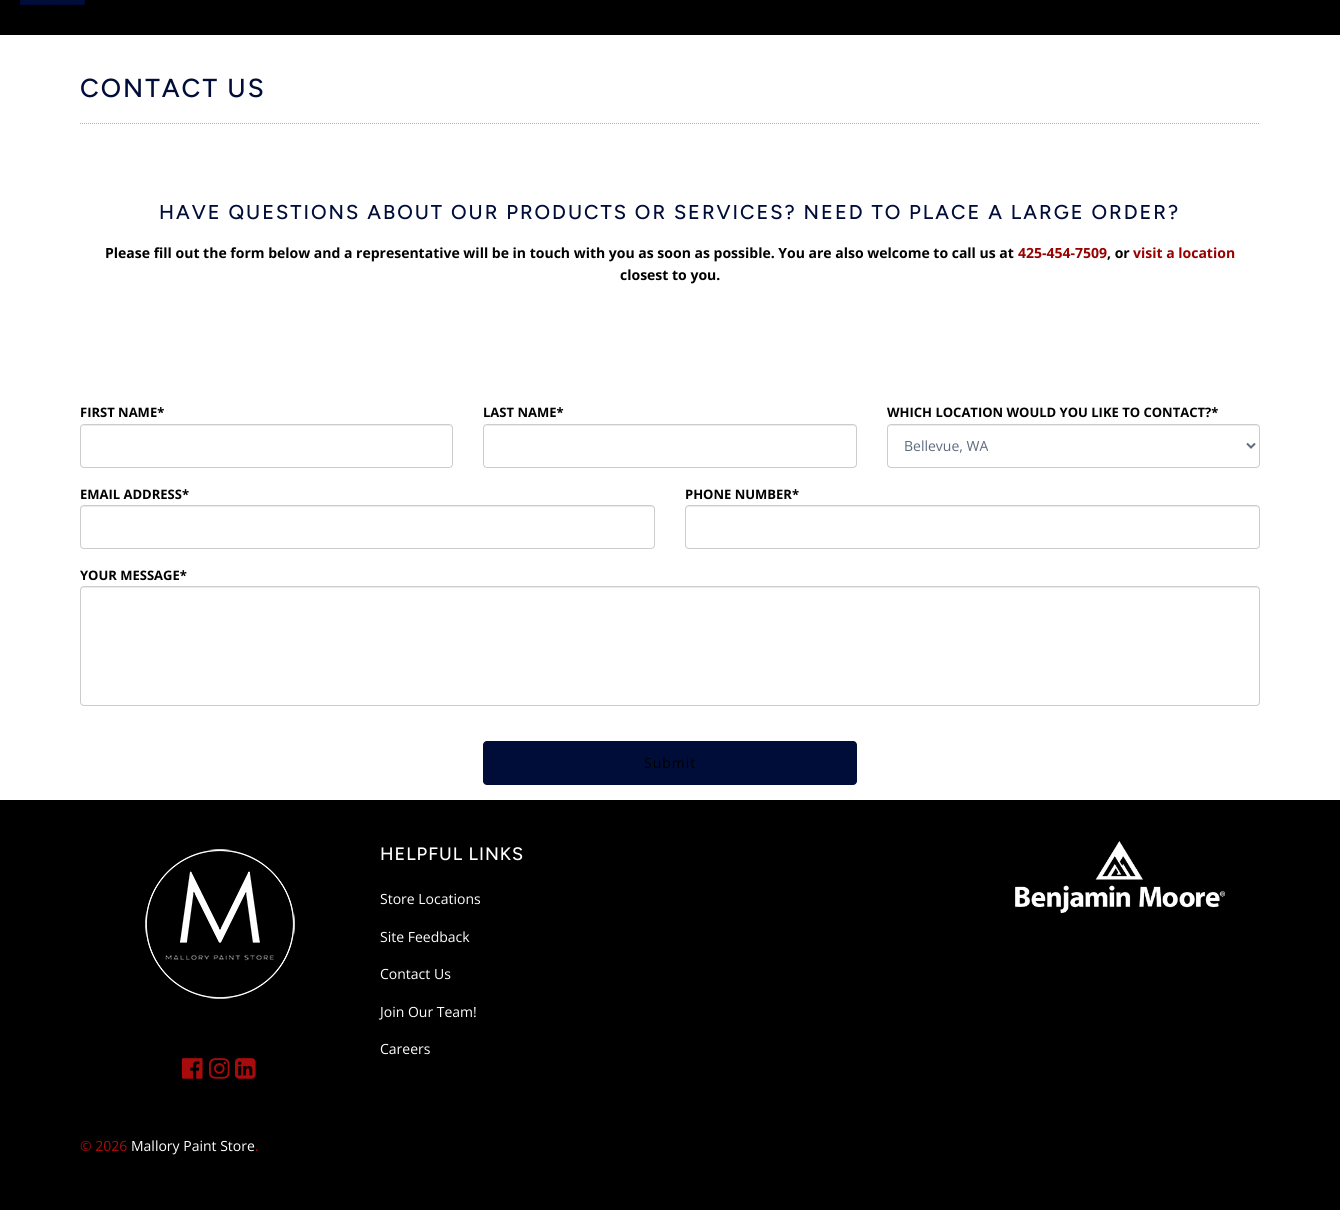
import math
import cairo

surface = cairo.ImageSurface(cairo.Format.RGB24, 1340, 1210)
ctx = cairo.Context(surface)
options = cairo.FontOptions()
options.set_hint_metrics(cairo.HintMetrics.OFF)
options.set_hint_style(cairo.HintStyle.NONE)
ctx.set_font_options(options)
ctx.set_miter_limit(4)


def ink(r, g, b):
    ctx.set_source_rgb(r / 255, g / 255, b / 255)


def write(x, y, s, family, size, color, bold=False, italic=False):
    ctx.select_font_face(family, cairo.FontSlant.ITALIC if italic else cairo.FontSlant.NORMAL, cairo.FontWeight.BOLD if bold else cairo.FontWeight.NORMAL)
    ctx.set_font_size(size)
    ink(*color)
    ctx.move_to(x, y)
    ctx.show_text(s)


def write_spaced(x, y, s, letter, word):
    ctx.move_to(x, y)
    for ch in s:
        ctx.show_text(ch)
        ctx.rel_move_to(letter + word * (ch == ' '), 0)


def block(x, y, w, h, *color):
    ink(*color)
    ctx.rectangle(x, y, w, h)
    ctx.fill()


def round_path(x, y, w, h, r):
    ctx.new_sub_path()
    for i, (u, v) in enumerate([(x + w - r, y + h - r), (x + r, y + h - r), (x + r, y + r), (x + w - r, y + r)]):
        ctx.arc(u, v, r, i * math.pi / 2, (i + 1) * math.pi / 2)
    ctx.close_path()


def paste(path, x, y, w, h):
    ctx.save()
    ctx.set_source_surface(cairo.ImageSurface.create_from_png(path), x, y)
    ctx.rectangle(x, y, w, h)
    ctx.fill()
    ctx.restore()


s1 = dict(family="Open Sans", size=14, color=(0, 0, 0), bold=True)
s2 = dict(family="Open Sans", size=14, color=(153, 0, 0), bold=True)
s3 = dict(family="Open Sans", size=13, color=(0, 0, 0), bold=True)
s4 = dict(family="Open Sans", size=14, color=(95, 106, 125))
s5 = dict(family="Open Sans", size=14, color=(255, 255, 255))
s6 = dict(family="Open Sans", size=14, color=(167, 11, 11))

ink(255, 255, 255)
ctx.paint()
block(0, 0, 1340, 35, 0, 0, 0)
paste("pic1.png", 20, 0, 65, 5)
ctx.select_font_face("Figtree Medium")
ctx.set_font_size(26)
ink(0, 13, 57)
write_spaced(80, 97, "CONTACT US", 2, 0)
ctx.new_path()
ctx.move_to(80, 123.5)
ctx.line_to(1260, 123.5)
ink(177, 176, 176)
ctx.set_line_width(1)
ctx.set_dash([1, 1])
ctx.stroke()
ctx.set_font_size(20)
ink(0, 13, 57)
write_spaced(159, 219, "HAVE QUESTIONS ABOUT OUR PRODUCTS OR SERVICES? NEED TO PLACE A LARGE ORDER?", 2, 0)
write(105, 258, "Please fill out the form below and a representative will be in touch with you as soon as possible. You are also welcome to call us at", **s1)
write(1018, 258, "425-454-7509", **s2)
write(1107, 258, ", or", **s1)
write(1133, 258, "visit a location", **s2)
write(620, 280, "closest to you.", **s1)
write(80, 417, "FIRST NAME*", **s3)
ink(236, 236, 236)
ctx.new_path()
ctx.move_to(84, 426)
ctx.line_to(449, 426)
ctx.curve_to(451, 426, 452, 427, 452, 429)
ctx.curve_to(452, 427, 451, 425, 449, 425)
ctx.line_to(84, 425)
ctx.line_to(82, 426)
ctx.line_to(81, 429)
ctx.curve_to(81, 427, 82, 426, 84, 426)
ctx.close_path()
ctx.fill()
round_path(80.5, 424.5, 372, 43, 3.5)
ink(204, 204, 204)
ctx.set_dash([])
ctx.stroke()
write(483, 417, "LAST NAME*", **s3)
ink(236, 236, 236)
ctx.new_path()
ctx.move_to(487, 426)
ctx.line_to(853, 426)
ctx.curve_to(855, 426, 856, 427, 856, 429)
ctx.curve_to(856, 427, 855, 425, 853, 425)
ctx.line_to(487, 425)
ctx.line_to(485, 426)
ctx.line_to(484, 429)
ctx.curve_to(484, 427, 485, 426, 487, 426)
ctx.close_path()
ctx.fill()
round_path(483.5, 424.5, 373, 43, 3.5)
ink(204, 204, 204)
ctx.stroke()
write(887, 417, "WHICH LOCATION WOULD YOU LIKE TO CONTACT?*", **s3)
ink(236, 236, 236)
ctx.new_path()
ctx.move_to(891, 426)
ctx.line_to(1256, 426)
ctx.curve_to(1258, 426, 1259, 427, 1259, 429)
ctx.curve_to(1259, 427, 1258, 425, 1256, 425)
ctx.line_to(891, 425)
ctx.line_to(889, 426)
ctx.line_to(888, 429)
ctx.curve_to(888, 427, 889, 426, 891, 426)
ctx.close_path()
ctx.fill()
round_path(887.5, 424.5, 372, 43, 3.5)
ink(204, 204, 204)
ctx.stroke()
ctx.new_path()
ctx.move_to(1247, 443.5)
ctx.line_to(1251, 447.5)
ctx.line_to(1255, 443.5)
ink(95, 106, 125)
ctx.set_line_width(2)
ctx.stroke()
write(904, 451, "Bellevue, WA", **s4)
write(80, 499, "EMAIL ADDRESS*", **s3)
ink(236, 236, 236)
ctx.new_path()
ctx.move_to(84, 507)
ctx.line_to(651, 507)
ctx.curve_to(653, 507, 654, 508, 654, 510)
ctx.line_to(654, 509)
ctx.curve_to(654, 507, 653, 506, 651, 506)
ctx.line_to(84, 506)
ctx.curve_to(82, 506, 81, 507, 81, 509)
ctx.line_to(81, 510)
ctx.curve_to(81, 508, 82, 507, 84, 507)
ctx.close_path()
ctx.fill()
round_path(80.5, 505.5, 574, 43, 3.5)
ink(204, 204, 204)
ctx.set_line_width(1)
ctx.stroke()
write(685, 499, "PHONE NUMBER*", **s3)
ink(236, 236, 236)
ctx.new_path()
ctx.move_to(689, 507)
ctx.line_to(1256, 507)
ctx.curve_to(1258, 507, 1259, 508, 1259, 510)
ctx.line_to(1259, 509)
ctx.curve_to(1259, 507, 1258, 506, 1256, 506)
ctx.line_to(689, 506)
ctx.curve_to(687, 506, 686, 507, 686, 509)
ctx.line_to(686, 510)
ctx.curve_to(686, 508, 687, 507, 689, 507)
ctx.close_path()
ctx.fill()
round_path(685.5, 505.5, 574, 43, 3.5)
ink(204, 204, 204)
ctx.stroke()
write(80, 580, "YOUR MESSAGE*", **s3)
ink(236, 236, 236)
ctx.new_path()
ctx.move_to(84, 588)
ctx.line_to(1256, 588)
ctx.curve_to(1258, 588, 1259, 589, 1259, 591)
ctx.line_to(1259, 590)
ctx.curve_to(1259, 588, 1258, 587, 1256, 587)
ctx.line_to(84, 587)
ctx.curve_to(82, 587, 81, 588, 81, 590)
ctx.line_to(81, 591)
ctx.curve_to(81, 589, 82, 588, 84, 588)
ctx.close_path()
ctx.fill()
round_path(80.5, 586.5, 1179, 119, 3.5)
ink(204, 204, 204)
ctx.stroke()
ink(0, 13, 57)
round_path(483, 741, 374, 44, 4)
ctx.fill()
ctx.select_font_face("Open Sans")
ctx.set_font_size(14)
ink(0, 0, 0)
write_spaced(644, 768, "Submit", 1, 0)
block(0, 800, 1340, 410, 0, 0, 0)
paste("pic2.png", 145, 849, 150, 150)
paste("pic3.png", 182, 1058, 21, 21)
paste("pic4.png", 209, 1058, 21, 21)
paste("pic5.png", 235, 1058, 21, 21)
ctx.select_font_face("Figtree Medium")
ctx.set_font_size(18)
ink(255, 255, 255)
write_spaced(380, 860, "HELPFUL LINKS", 1, 0)
write(380, 904, "Store Locations", **s5)
write(380, 942, "Site Feedback", **s5)
write(380, 979, "Contact Us", **s5)
write(380, 1017, "Join Our Team!", **s5)
write(380, 1054, "Careers", **s5)
paste("pic6.png", 1015, 841, 210, 72)
write(80, 1151, "© 2026", **s6)
write(131, 1151, "Mallory Paint Store", **s5)
write(255, 1151, ".", **s6)
surface.write_to_png("screenshot.png")
